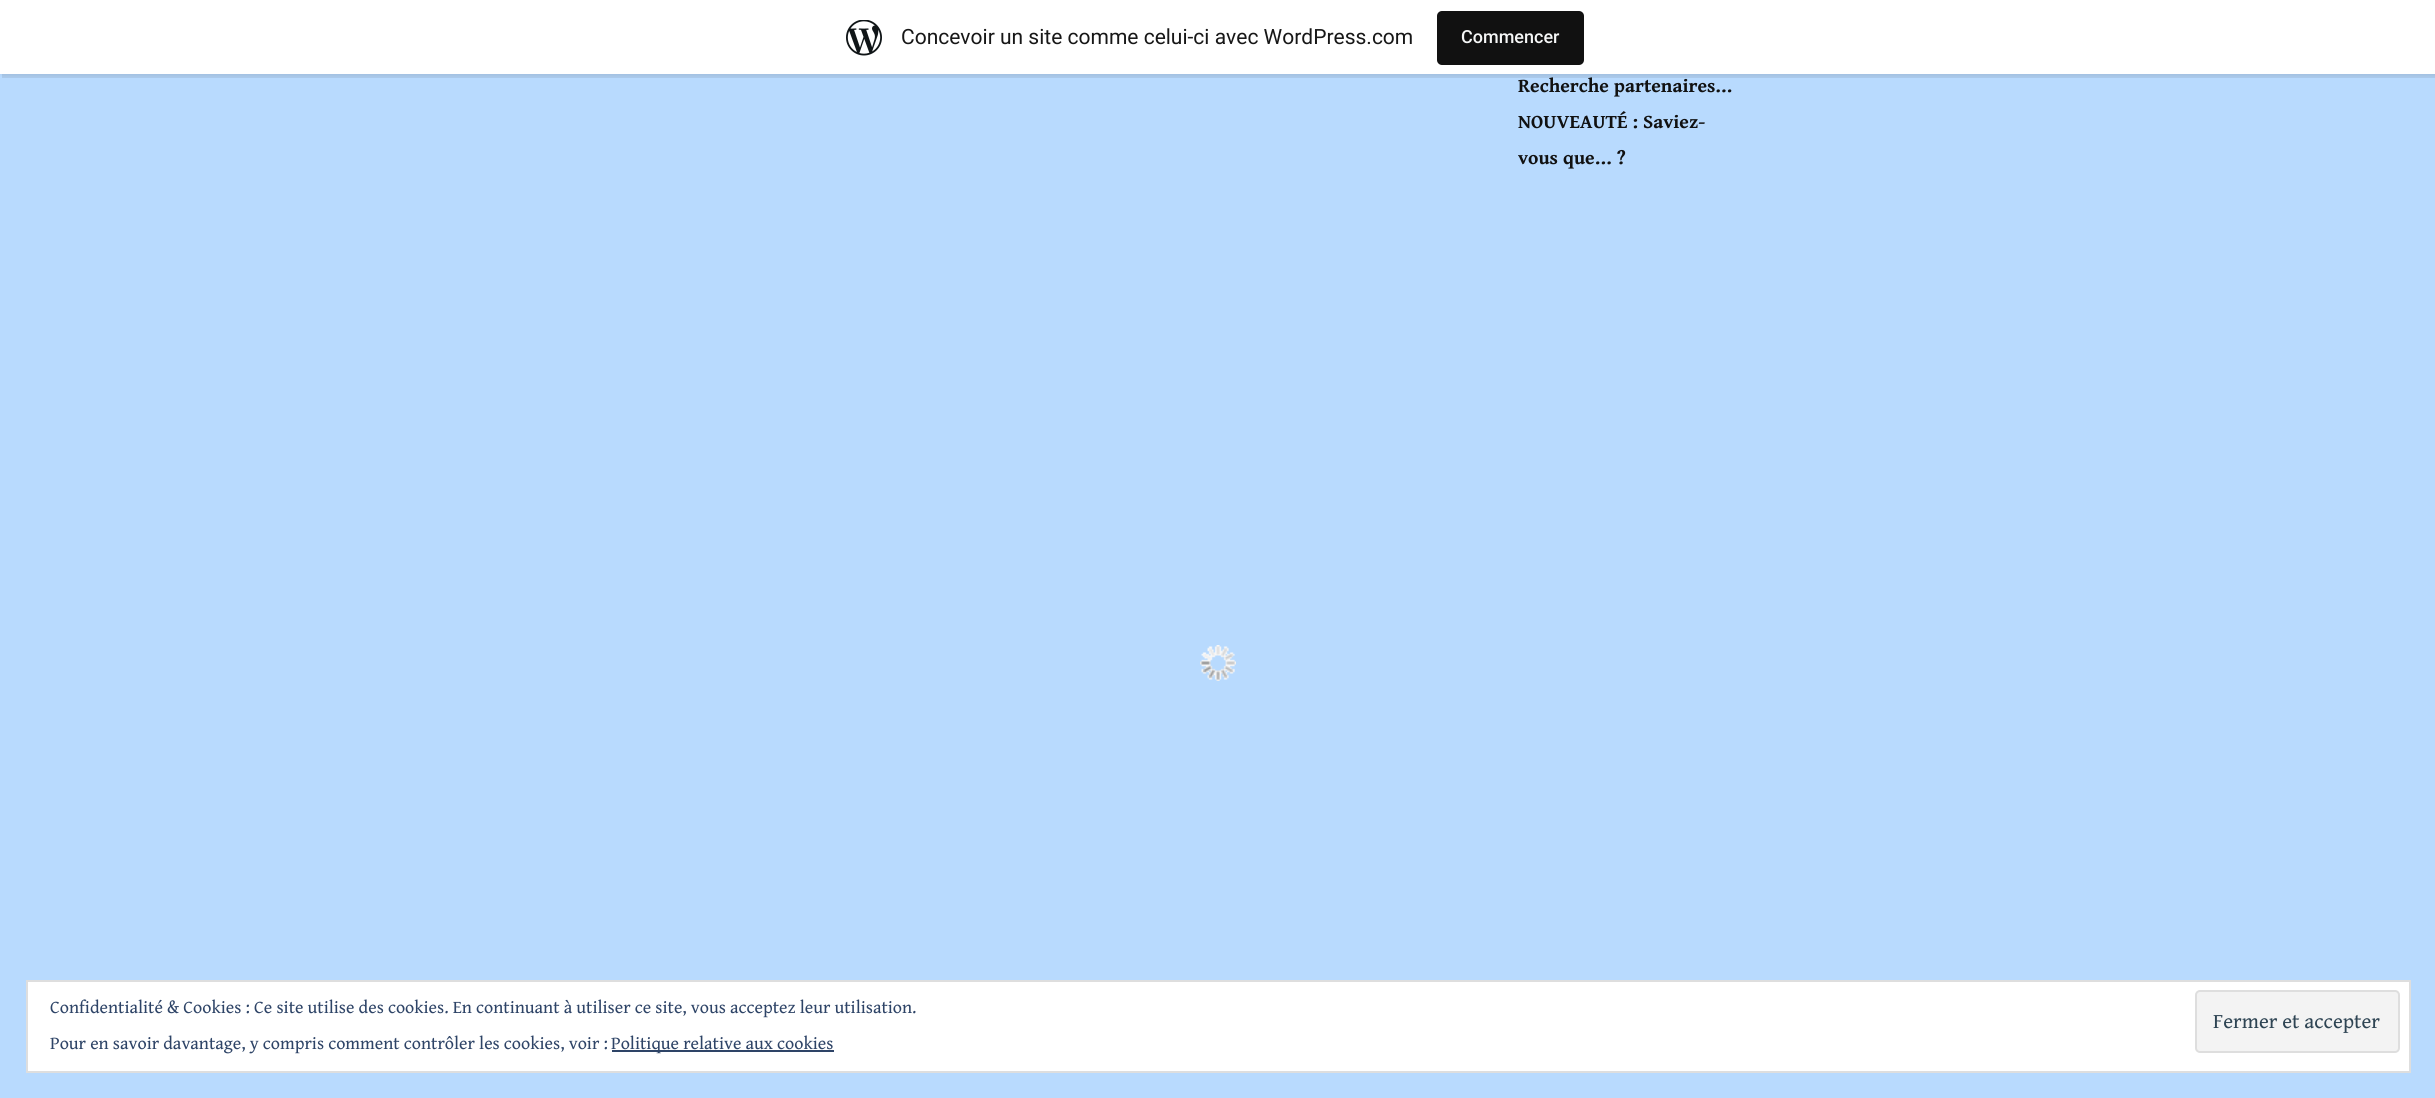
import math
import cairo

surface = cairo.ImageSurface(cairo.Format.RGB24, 2435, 1098)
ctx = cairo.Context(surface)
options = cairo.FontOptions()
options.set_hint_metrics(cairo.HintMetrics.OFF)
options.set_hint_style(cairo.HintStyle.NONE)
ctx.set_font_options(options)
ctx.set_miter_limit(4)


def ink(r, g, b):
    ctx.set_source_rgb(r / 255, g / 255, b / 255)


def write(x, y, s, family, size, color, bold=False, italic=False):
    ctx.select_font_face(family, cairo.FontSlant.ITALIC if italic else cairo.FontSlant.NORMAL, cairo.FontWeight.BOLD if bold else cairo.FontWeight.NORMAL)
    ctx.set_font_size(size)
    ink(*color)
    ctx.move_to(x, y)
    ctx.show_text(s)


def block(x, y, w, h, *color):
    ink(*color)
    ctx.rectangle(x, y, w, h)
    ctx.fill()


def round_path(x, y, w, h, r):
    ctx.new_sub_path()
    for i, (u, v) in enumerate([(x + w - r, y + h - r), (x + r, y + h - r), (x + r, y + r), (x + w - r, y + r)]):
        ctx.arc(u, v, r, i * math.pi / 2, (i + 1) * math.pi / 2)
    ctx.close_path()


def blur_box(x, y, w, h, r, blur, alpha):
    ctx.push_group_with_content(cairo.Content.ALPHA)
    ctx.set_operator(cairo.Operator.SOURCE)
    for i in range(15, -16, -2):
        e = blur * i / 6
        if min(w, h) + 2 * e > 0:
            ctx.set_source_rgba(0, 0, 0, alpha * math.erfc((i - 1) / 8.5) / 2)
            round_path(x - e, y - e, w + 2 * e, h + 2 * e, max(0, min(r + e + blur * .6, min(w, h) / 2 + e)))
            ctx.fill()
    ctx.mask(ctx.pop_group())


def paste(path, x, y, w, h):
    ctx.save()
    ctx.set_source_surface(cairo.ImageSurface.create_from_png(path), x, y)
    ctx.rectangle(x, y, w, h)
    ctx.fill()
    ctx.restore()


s1 = dict(family="Roboto", size=21, color=(23, 23, 23))
s2 = dict(family="Roboto Medium", size=18, color=(246, 247, 247))
s3 = dict(family="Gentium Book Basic", size=19.5, color=(17, 17, 17), bold=True)
s4 = dict(family="Gentium Book Basic", size=18, color=(46, 68, 103))
s5 = dict(family="Gentium Book Basic", size=21, color=(46, 68, 83))

ink(184, 218, 254)
ctx.paint()
ink(0, 0, 0)
blur_box(0, 2, 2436, 73, 0, 1.5, 0.05)
ctx.set_source_rgba(0, 0, 0, 0.08)
ctx.new_path()
ctx.move_to(2, 74)
ctx.line_to(2, 78)
ctx.line_to(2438, 78)
ctx.line_to(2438, 5)
ctx.line_to(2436, 5)
ctx.line_to(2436, 74)
ctx.close_path()
ctx.fill()
block(0, 0, 2435, 74, 255, 255, 255)
paste("pic1.png", 846, 20, 36, 36)
write(901, 44, "Concevoir un site comme celui-ci avec WordPress.com", **s1)
ink(17, 17, 17)
round_path(1437, 11, 147, 54, 5)
ctx.fill()
write(1461, 43, "Commencer", **s2)
write(1518, 92, "Recherche partenaires…", **s3)
write(1518, 128, "NOUVEAUTÉ : Saviez-", **s3)
write(1518, 164, "vous que… ?", **s3)
paste("pic2.png", 1200, 645, 36, 36)
ink(255, 255, 255)
ctx.rectangle(27, 981, 2383, 91)
ctx.fill_preserve()
ink(222, 222, 222)
ctx.stroke()
write(50, 1013, "Confidentialité & Cookies : Ce site utilise des cookies. En continuant à utiliser ce site, vous acceptez leur utilisation.", **s4)
ink(243, 243, 243)
round_path(2196, 991, 203, 61, 4)
ctx.fill_preserve()
ink(222, 222, 222)
ctx.stroke()
write(2213, 1028, "Fermer et accepter", **s5)
write(50, 1049, "Pour en savoir davantage, y compris comment contrôler les cookies, voir :", **s4)
block(612, 1050, 222, 2, 46, 68, 103)
write(611, 1049, "Politique relative aux cookies", **s4)
surface.write_to_png("screenshot.png")
